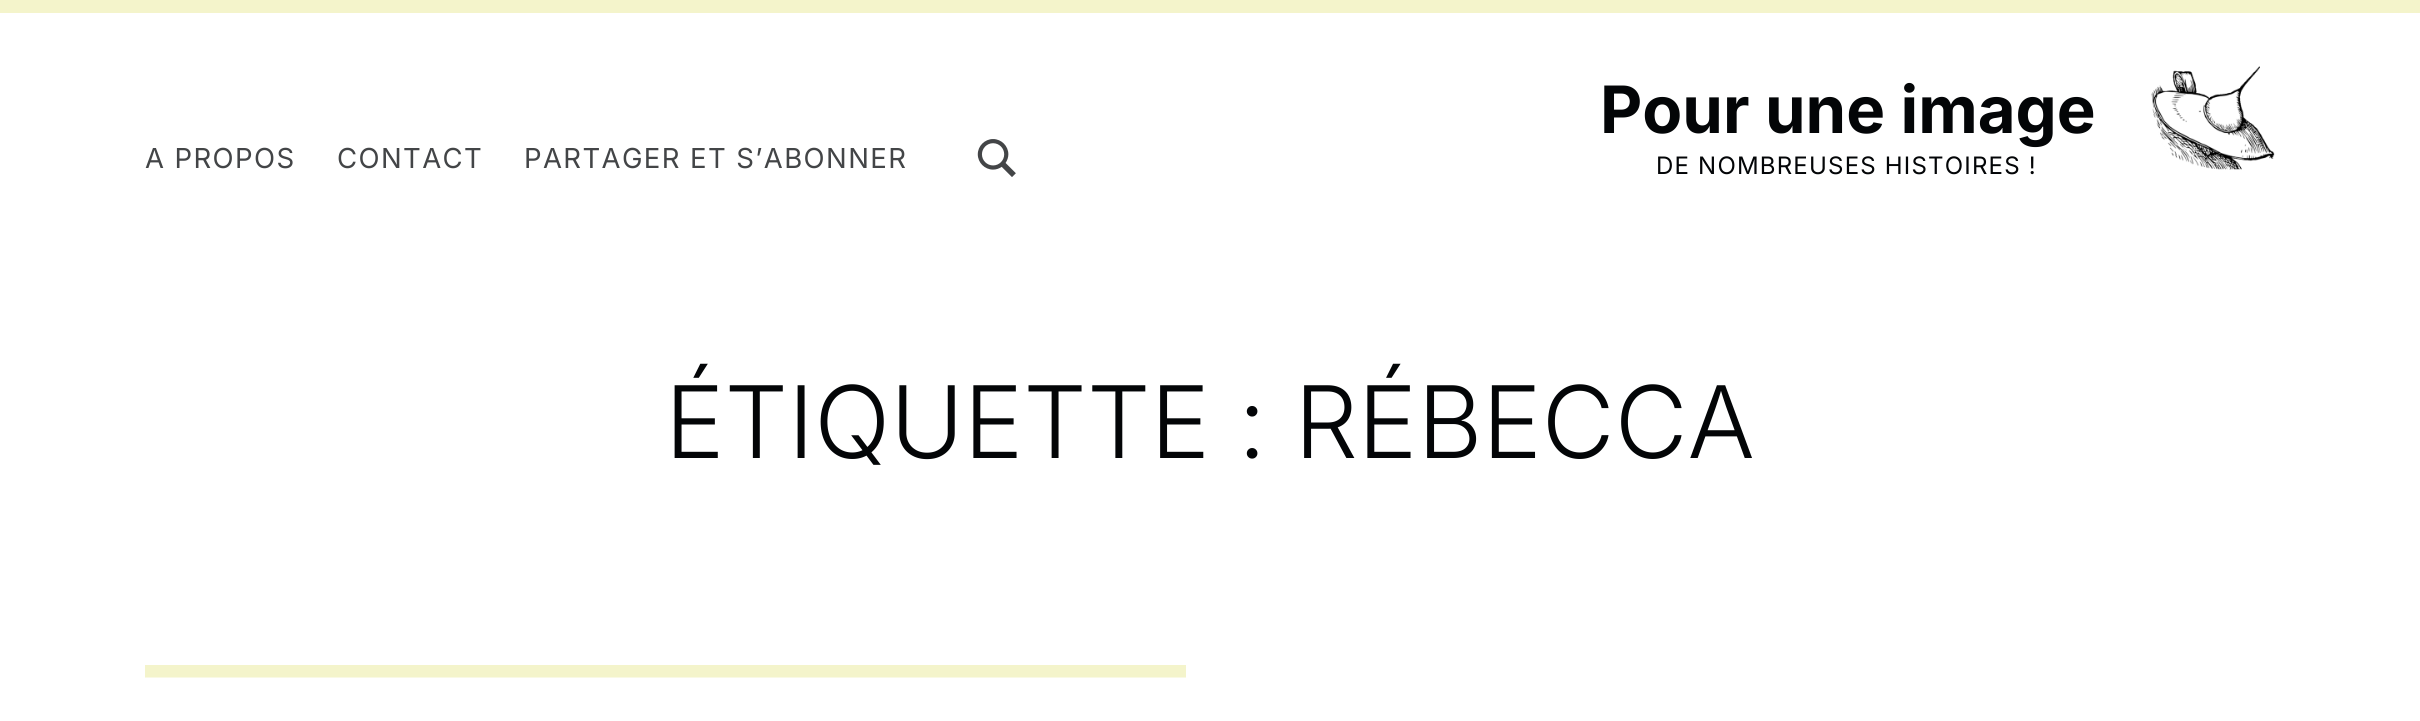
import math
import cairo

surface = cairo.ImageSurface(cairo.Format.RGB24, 2420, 721)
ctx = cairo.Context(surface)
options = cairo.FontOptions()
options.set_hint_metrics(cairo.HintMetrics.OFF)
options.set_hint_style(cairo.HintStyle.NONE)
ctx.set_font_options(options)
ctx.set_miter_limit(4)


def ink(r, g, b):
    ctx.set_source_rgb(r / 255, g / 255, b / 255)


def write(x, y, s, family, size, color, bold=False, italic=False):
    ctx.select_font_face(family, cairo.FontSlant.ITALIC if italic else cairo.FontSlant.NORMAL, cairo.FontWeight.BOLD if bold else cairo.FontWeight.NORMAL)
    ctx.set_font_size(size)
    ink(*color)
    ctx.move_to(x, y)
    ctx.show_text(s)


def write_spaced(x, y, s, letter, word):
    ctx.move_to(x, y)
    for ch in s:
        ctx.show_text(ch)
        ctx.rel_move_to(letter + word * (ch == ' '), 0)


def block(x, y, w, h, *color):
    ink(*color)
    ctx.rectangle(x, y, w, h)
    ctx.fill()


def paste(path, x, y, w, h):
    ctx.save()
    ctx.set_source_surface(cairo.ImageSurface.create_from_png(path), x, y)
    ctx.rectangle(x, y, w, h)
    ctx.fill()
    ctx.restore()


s1 = dict(family="Inter", size=65.25, color=(3, 5, 7), bold=True)
s2 = dict(family="Inter Light", size=100, color=(3, 5, 7))

ink(255, 255, 255)
ctx.paint()
block(0, 0, 2420, 13, 244, 244, 203)
ctx.select_font_face("Inter")
ctx.set_font_size(27.5)
ink(67, 69, 71)
write_spaced(145, 168, "A PROPOS", 1.4, 0)
write_spaced(337, 168, "CONTACT", 1.4, 0)
write_spaced(524, 168, "PARTAGER ET S’ABONNER", 1.4, 0)
paste("pic1.png", 977, 139, 39, 38)
write(1600, 133, "Pour une image", **s1)
ctx.select_font_face("Inter")
ctx.set_font_size(24)
write_spaced(1656, 174, "DE NOMBREUSES HISTOIRES !", 1.2, 0)
paste("pic2.png", 2151, 66, 124, 104)
write(665, 458, "ÉTIQUETTE : RÉBECCA", **s2)
block(145, 665, 1041, 12, 244, 244, 203)
block(145, 677, 1041, 1, 249, 249, 228)
surface.write_to_png("screenshot.png")
